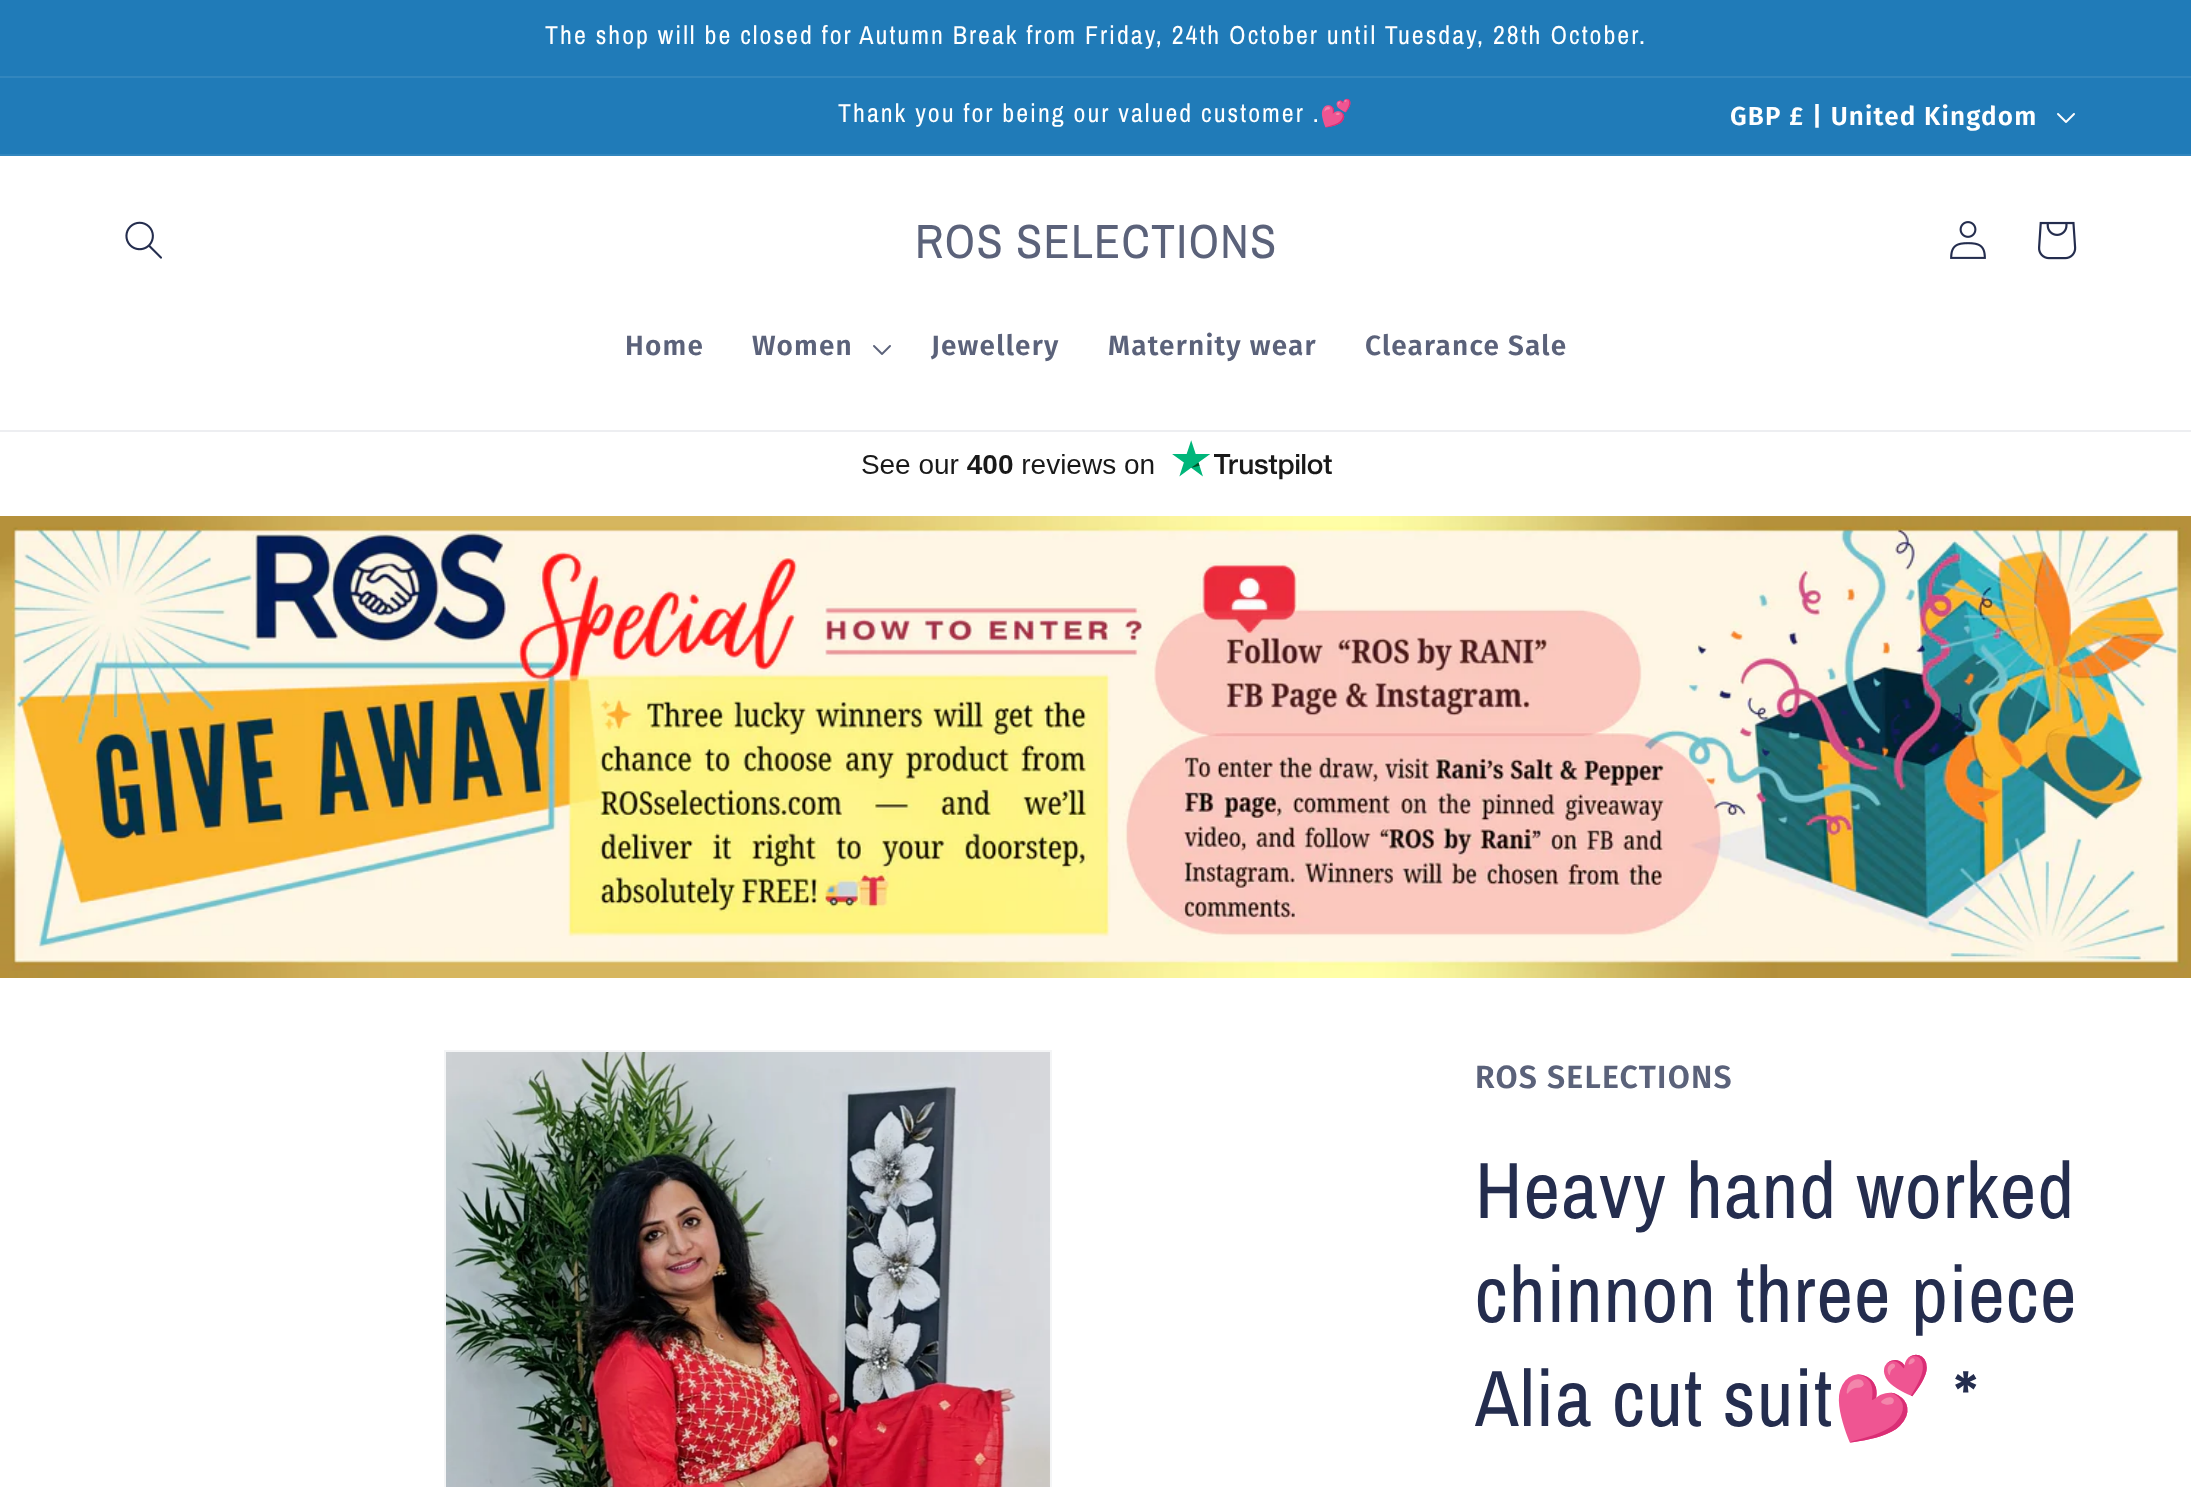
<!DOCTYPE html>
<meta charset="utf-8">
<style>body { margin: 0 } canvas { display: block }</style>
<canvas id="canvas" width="2191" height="1487"></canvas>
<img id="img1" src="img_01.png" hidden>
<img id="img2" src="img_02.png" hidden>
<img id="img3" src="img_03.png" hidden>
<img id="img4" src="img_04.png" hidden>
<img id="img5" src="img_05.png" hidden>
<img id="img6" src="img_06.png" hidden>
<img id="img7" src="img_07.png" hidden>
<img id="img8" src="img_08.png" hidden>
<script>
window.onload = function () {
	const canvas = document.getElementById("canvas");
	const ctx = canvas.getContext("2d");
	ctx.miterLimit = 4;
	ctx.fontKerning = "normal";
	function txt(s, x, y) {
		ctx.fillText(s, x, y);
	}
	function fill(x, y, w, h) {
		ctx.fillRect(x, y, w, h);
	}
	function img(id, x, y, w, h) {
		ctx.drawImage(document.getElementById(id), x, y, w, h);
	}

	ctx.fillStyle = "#FFFFFF";
	fill(0, 0, 2191, 1487);
	ctx.fillStyle = "#207BB8";
	fill(0, 0, 2191, 76);
	ctx.fillStyle = "#3286BE";
	fill(0, 76, 2191, 2);
	ctx.fillStyle = "#207BB8";
	fill(0, 78, 2191, 76);
	ctx.fillStyle = "#3286BE";
	fill(0, 154, 2191, 2);
	img("img1", 2057, 113, 18, 10);
	ctx.fillStyle = "#EDEEF1";
	fill(0, 430, 2191, 2);
	img("img2", 125, 221, 37, 38);
	img("img3", 1950, 221, 36, 38);
	img("img4", 2038, 221, 39, 39);
	img("img5", 873, 345, 18, 10);
	img("img6", 862, 440, 470, 40);
	img("img7", 0, 516, 2191, 462);
	ctx.strokeStyle = "#F4F5F6";
	ctx.lineWidth = 2;
	ctx.strokeRect(445, 1051, 606, 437);
	img("img8", 446, 1052, 604, 435);
	ctx.letterSpacing = "2px";
	ctx.font = "26px Archivo Narrow";
	ctx.fillStyle = "#FFFFFF";
	txt("The shop will be closed for Autumn Break from Friday, 24th October until Tuesday, 28th October.", 545, 44);
	txt("Thank you for being our valued customer .", 838, 122);
	ctx.font = "26px Noto Color Emoji";
	txt("💕", 1320, 122);
	ctx.letterSpacing = "1.2px";
	ctx.font = "600 26px Fira Sans";
	txt("GBP £ | United Kingdom", 1730, 125);
	ctx.font = "48px Archivo Narrow";
	ctx.fillStyle = "#5B627A";
	txt("ROS SELECTIONS", 915, 258);
	ctx.font = "600 28px Fira Sans";
	txt("Home", 625, 355);
	txt("Women", 752, 355);
	txt("Jewellery", 931, 355);
	txt("Maternity wear", 1108, 355);
	txt("Clearance Sale", 1365, 355);
	ctx.font = "600 32px Fira Sans";
	txt("ROS SELECTIONS", 1475, 1088);
	ctx.font = "80px Archivo Narrow";
	ctx.fillStyle = "#242D4E";
	txt("Heavy hand worked", 1475, 1218);
	txt("chinnon three piece", 1475, 1322);
	txt("Alia cut suit", 1475, 1426);
	ctx.font = "80px Noto Color Emoji";
	txt("💕", 1833, 1426);
	ctx.font = "80px Archivo Narrow";
	txt("*", 1953, 1426);
};
</script>
